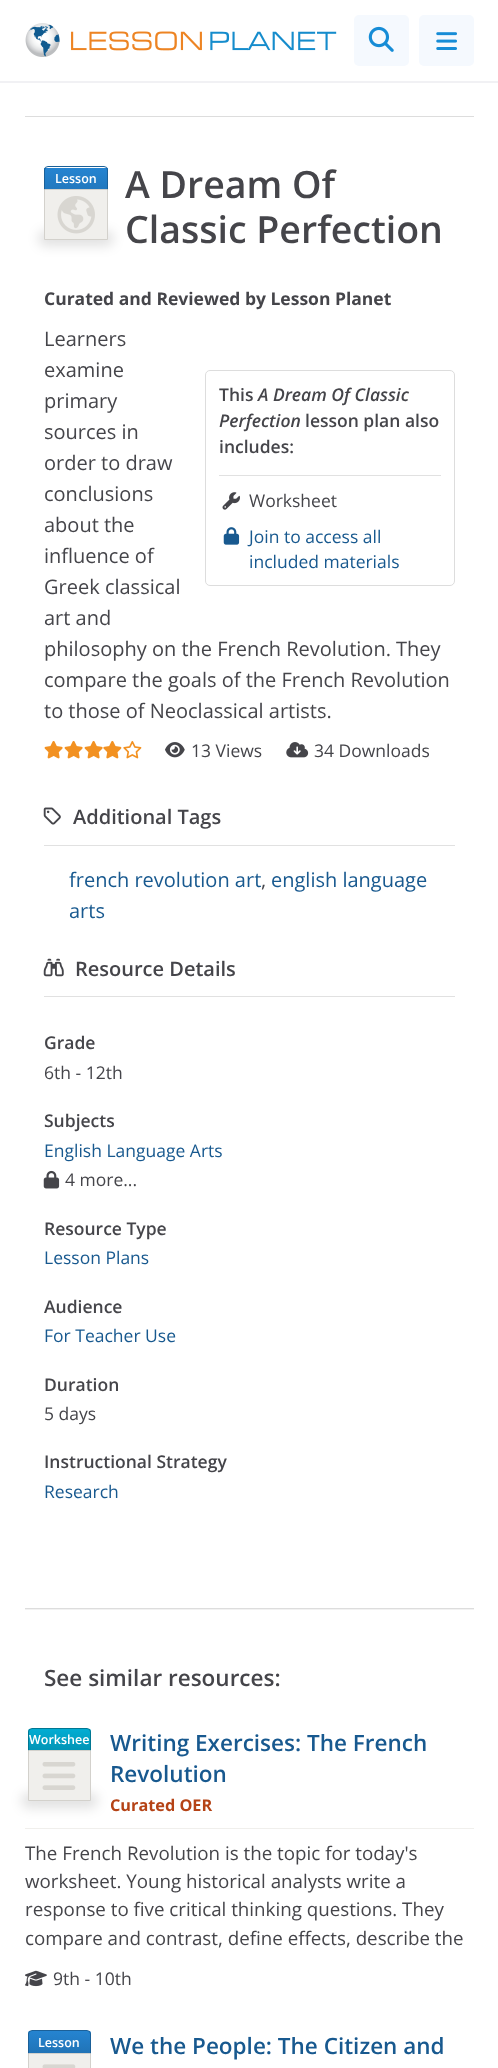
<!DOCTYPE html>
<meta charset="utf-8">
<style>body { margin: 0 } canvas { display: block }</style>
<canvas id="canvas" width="498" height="2068"></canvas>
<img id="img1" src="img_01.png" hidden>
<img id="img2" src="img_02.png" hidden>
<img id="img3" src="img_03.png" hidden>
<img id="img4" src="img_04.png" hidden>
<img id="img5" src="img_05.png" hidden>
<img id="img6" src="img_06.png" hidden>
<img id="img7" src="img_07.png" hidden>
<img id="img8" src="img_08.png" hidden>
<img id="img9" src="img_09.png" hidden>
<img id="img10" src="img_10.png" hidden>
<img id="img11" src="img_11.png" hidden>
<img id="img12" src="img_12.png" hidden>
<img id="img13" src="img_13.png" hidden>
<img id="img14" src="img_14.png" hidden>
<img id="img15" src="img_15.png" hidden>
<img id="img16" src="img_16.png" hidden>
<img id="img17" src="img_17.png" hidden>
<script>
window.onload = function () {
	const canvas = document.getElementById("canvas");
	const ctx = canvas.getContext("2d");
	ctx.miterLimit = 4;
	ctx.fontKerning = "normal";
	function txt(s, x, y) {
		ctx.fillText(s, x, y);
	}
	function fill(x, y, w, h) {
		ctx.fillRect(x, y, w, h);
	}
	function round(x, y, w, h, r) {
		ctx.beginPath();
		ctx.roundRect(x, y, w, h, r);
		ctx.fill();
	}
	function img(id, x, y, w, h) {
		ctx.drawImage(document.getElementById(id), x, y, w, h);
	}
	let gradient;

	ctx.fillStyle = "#FFFFFF";
	fill(0, 0, 498, 2068);
	ctx.fillStyle = "#F1F1F4";
	ctx.beginPath();
	ctx.moveTo(0, 81);
	ctx.lineTo(0, 83);
	ctx.lineTo(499, 83);
	ctx.lineTo(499, 1);
	ctx.lineTo(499, 81);
	ctx.closePath();
	ctx.fill();
	img("img1", 25, 23, 312, 34);
	ctx.fillStyle = "#F5F9FE";
	round(354, 15, 55, 51, 5);
	img("img2", 368, 26, 26, 26);
	round(419, 15, 55, 51, 5);
	img("img3", 436, 32, 21, 18);
	ctx.fillStyle = "rgba(0, 0, 0, 0.05)";
	ctx.filter = "blur(0.5px)";
	ctx.beginPath();
	ctx.rect(25, 118, 449, 1492);
	ctx.fill();
	ctx.filter = "none";
	ctx.fillStyle = "#FFFFFF";
	fill(25, 118, 449, 1490);
	ctx.fillStyle = "#DDDDDD";
	fill(25, 116, 449, 1);
	fill(25, 1608, 449, 1);
	gradient = ctx.createLinearGradient(76, 168, 76, 208);
	gradient.addColorStop(0, "#2584D1");
	gradient.addColorStop(1, "#1F6EAE");
	ctx.fillStyle = gradient;
	fill(44, 168, 64, 21);
	ctx.beginPath();
	ctx.roundRect(44.5, 166.5, 63, 42, [3.5, 3.5, 0, 0]);
	ctx.strokeStyle = "#1B6098";
	ctx.stroke();
	ctx.fillStyle = "rgba(0, 0, 0, 0.12)";
	ctx.filter = "blur(6px)";
	ctx.beginPath();
	ctx.roundRect(38, 231, 76, 15, 7.5);
	ctx.fill();
	ctx.filter = "none";
	ctx.fillStyle = "#F0EFEC";
	ctx.beginPath();
	ctx.rect(44.5, 189.5, 63, 50);
	ctx.fill();
	ctx.strokeStyle = "#D3D1CC";
	ctx.stroke();
	img("img4", 57, 196, 38, 38);
	ctx.beginPath();
	ctx.roundRect(205.5, 370.5, 249, 215, 4.5);
	ctx.strokeStyle = "#DDDDDD";
	ctx.stroke();
	ctx.fillStyle = "#E1E1E1";
	fill(219, 475, 222, 1);
	img("img5", 222, 492, 18, 18);
	img("img6", 223, 527, 17, 18);
	img("img7", 44, 741, 19, 18);
	img("img7", 64, 741, 19, 18);
	img("img7", 84, 741, 19, 18);
	img("img8", 103, 741, 19, 18);
	img("img9", 123, 741, 19, 18);
	img("img10", 165, 742, 20, 16);
	img("img11", 286, 742, 23, 16);
	fill(44, 845, 411, 1);
	img("img12", 43, 807, 18, 18);
	fill(44, 996, 411, 1);
	img("img13", 43, 958, 21, 19);
	img("img14", 43, 1170, 17, 19);
	ctx.save();
	ctx.beginPath();
	ctx.roundRect(28, 1728, 63, 31, [4, 4, 0, 0]);
	ctx.clip();
	gradient = ctx.createLinearGradient(59, 1729, 59, 1758);
	gradient.addColorStop(0, "#02ADD3");
	gradient.addColorStop(1, "#028CAB");
	ctx.fillStyle = gradient;
	fill(28, 1729, 63, 21);
	ctx.restore();
	ctx.beginPath();
	ctx.roundRect(28.5, 1728.5, 62, 30, [3.5, 3.5, 0, 0]);
	ctx.strokeStyle = "#027792";
	ctx.stroke();
	ctx.fillStyle = "rgba(0, 0, 0, 0.12)";
	ctx.filter = "blur(6px)";
	ctx.beginPath();
	ctx.roundRect(21, 1793, 77, 15, 7.5);
	ctx.fill();
	ctx.filter = "none";
	ctx.fillStyle = "#F0EFEC";
	ctx.beginPath();
	ctx.rect(28.5, 1750.5, 62, 50);
	ctx.fill();
	ctx.strokeStyle = "#D3D1CC";
	ctx.stroke();
	img("img15", 42, 1762, 34, 28);
	fill(25, 1828, 449, 1);
	img("img16", 25, 1970, 22, 17);
	ctx.save();
	ctx.beginPath();
	ctx.roundRect(28, 2030, 63, 31, [4, 4, 0, 0]);
	ctx.clip();
	gradient = ctx.createLinearGradient(59, 2031, 59, 2060);
	gradient.addColorStop(0, "#2584D1");
	gradient.addColorStop(1, "#1F6EAE");
	ctx.fillStyle = gradient;
	fill(28, 2031, 63, 22);
	ctx.restore();
	ctx.beginPath();
	ctx.roundRect(28.5, 2030.5, 62, 30, [3.5, 3.5, 0, 0]);
	ctx.strokeStyle = "#1B6098";
	ctx.stroke();
	ctx.beginPath();
	ctx.rect(28.5, 2053.5, 62, 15);
	ctx.fill();
	ctx.strokeStyle = "#D3D1CC";
	ctx.stroke();
	img("img17", 42, 2064, 34, 4);
	ctx.font = "600 12.5px Open Sans";
	ctx.fillStyle = "#FFFFFF";
	txt("Lesson", 55, 183);
	ctx.font = "600 37.5px Open Sans";
	ctx.fillStyle = "#45454A";
	txt("A Dream Of", 125, 198);
	txt("Classic Perfection", 125, 243);
	ctx.font = "bold 17.5px Open Sans";
	txt("Curated and Reviewed by Lesson Planet", 44, 305);
	ctx.font = "20px Open Sans";
	txt("Learners", 44, 346);
	txt("examine", 44, 377);
	txt("primary", 44, 408);
	txt("sources in", 44, 439);
	txt("order to draw", 44, 470);
	txt("conclusions", 44, 501);
	txt("about the", 44, 532);
	txt("influence of", 44, 563);
	txt("Greek classical", 44, 594);
	txt("art and", 44, 625);
	txt("philosophy on the French Revolution. They", 44, 656);
	txt("compare the goals of the French Revolution", 44, 687);
	txt("to those of Neoclassical artists.", 44, 718);
	ctx.font = "600 17.5px Open Sans";
	txt("This", 219, 401);
	ctx.font = "italic 600 17.5px Open Sans";
	txt("A Dream Of Classic", 258, 401);
	txt("Perfection", 219, 427);
	ctx.font = "600 17.5px Open Sans";
	txt("lesson plan also", 305, 427);
	txt("includes:", 219, 453);
	ctx.font = "17.5px Open Sans";
	txt("Worksheet", 249, 507);
	ctx.fillStyle = "#18598F";
	txt("Join to access all", 249, 543);
	txt("included materials", 249, 568);
	ctx.fillStyle = "#45454A";
	txt("13 Views", 191, 757);
	txt("34 Downloads", 314, 757);
	ctx.font = "600 20px Open Sans";
	txt("Additional Tags", 73, 824);
	ctx.font = "20px Open Sans";
	ctx.fillStyle = "#18598F";
	txt("french revolution art", 69, 887);
	ctx.fillStyle = "#45454A";
	txt(",", 261, 887);
	ctx.fillStyle = "#18598F";
	txt("english language", 271, 887);
	txt("arts", 69, 918);
	ctx.font = "600 20px Open Sans";
	ctx.fillStyle = "#45454A";
	txt("Resource Details", 75, 976);
	ctx.font = "600 17.5px Open Sans";
	txt("Grade", 44, 1049);
	ctx.font = "17.5px Open Sans";
	txt("6th - 12th", 44, 1079);
	ctx.font = "600 17.5px Open Sans";
	txt("Subjects", 44, 1127);
	ctx.font = "17.5px Open Sans";
	ctx.fillStyle = "#18598F";
	txt("English Language Arts", 44, 1157);
	ctx.fillStyle = "#45454A";
	txt("4 more...", 65, 1186);
	ctx.font = "600 17.5px Open Sans";
	txt("Resource Type", 44, 1235);
	ctx.font = "17.5px Open Sans";
	ctx.fillStyle = "#18598F";
	txt("Lesson Plans", 44, 1264);
	ctx.font = "600 17.5px Open Sans";
	ctx.fillStyle = "#45454A";
	txt("Audience", 44, 1313);
	ctx.font = "17.5px Open Sans";
	ctx.fillStyle = "#18598F";
	txt("For Teacher Use", 44, 1342);
	ctx.font = "600 17.5px Open Sans";
	ctx.fillStyle = "#45454A";
	txt("Duration", 44, 1391);
	ctx.font = "17.5px Open Sans";
	txt("5 days", 44, 1420);
	ctx.font = "600 17.5px Open Sans";
	txt("Instructional Strategy", 44, 1468);
	ctx.font = "17.5px Open Sans";
	ctx.fillStyle = "#18598F";
	txt("Research", 44, 1498);
	ctx.font = "600 22.5px Open Sans";
	ctx.fillStyle = "#45454A";
	txt("See similar resources:", 44, 1686);
	ctx.font = "600 12.5px Open Sans";
	ctx.fillStyle = "#FFFFFF";
	txt("Workshee", 29, 1744);
	ctx.font = "600 22.5px Open Sans";
	ctx.fillStyle = "#18598F";
	txt("Writing Exercises: The French", 110, 1751);
	txt("Revolution", 110, 1782);
	ctx.font = "bold 16.25px Open Sans";
	ctx.fillStyle = "#B54316";
	txt("Curated OER", 110, 1811);
	ctx.font = "18.75px Open Sans";
	ctx.fillStyle = "#45454A";
	txt("The French Revolution is the topic for today's", 25, 1860);
	txt("worksheet. Young historical analysts write a", 25, 1888);
	txt("response to five critical thinking questions. They", 25, 1916);
	txt("compare and contrast, define effects, describe the", 25, 1945);
	ctx.font = "17.5px Open Sans";
	txt("9th - 10th", 53, 1985);
	ctx.font = "600 12.5px Open Sans";
	ctx.fillStyle = "#FFFFFF";
	txt("Lesson", 38, 2047);
	ctx.font = "600 22.5px Open Sans";
	ctx.fillStyle = "#18598F";
	txt("We the People: The Citizen and", 110, 2054);
};
</script>
